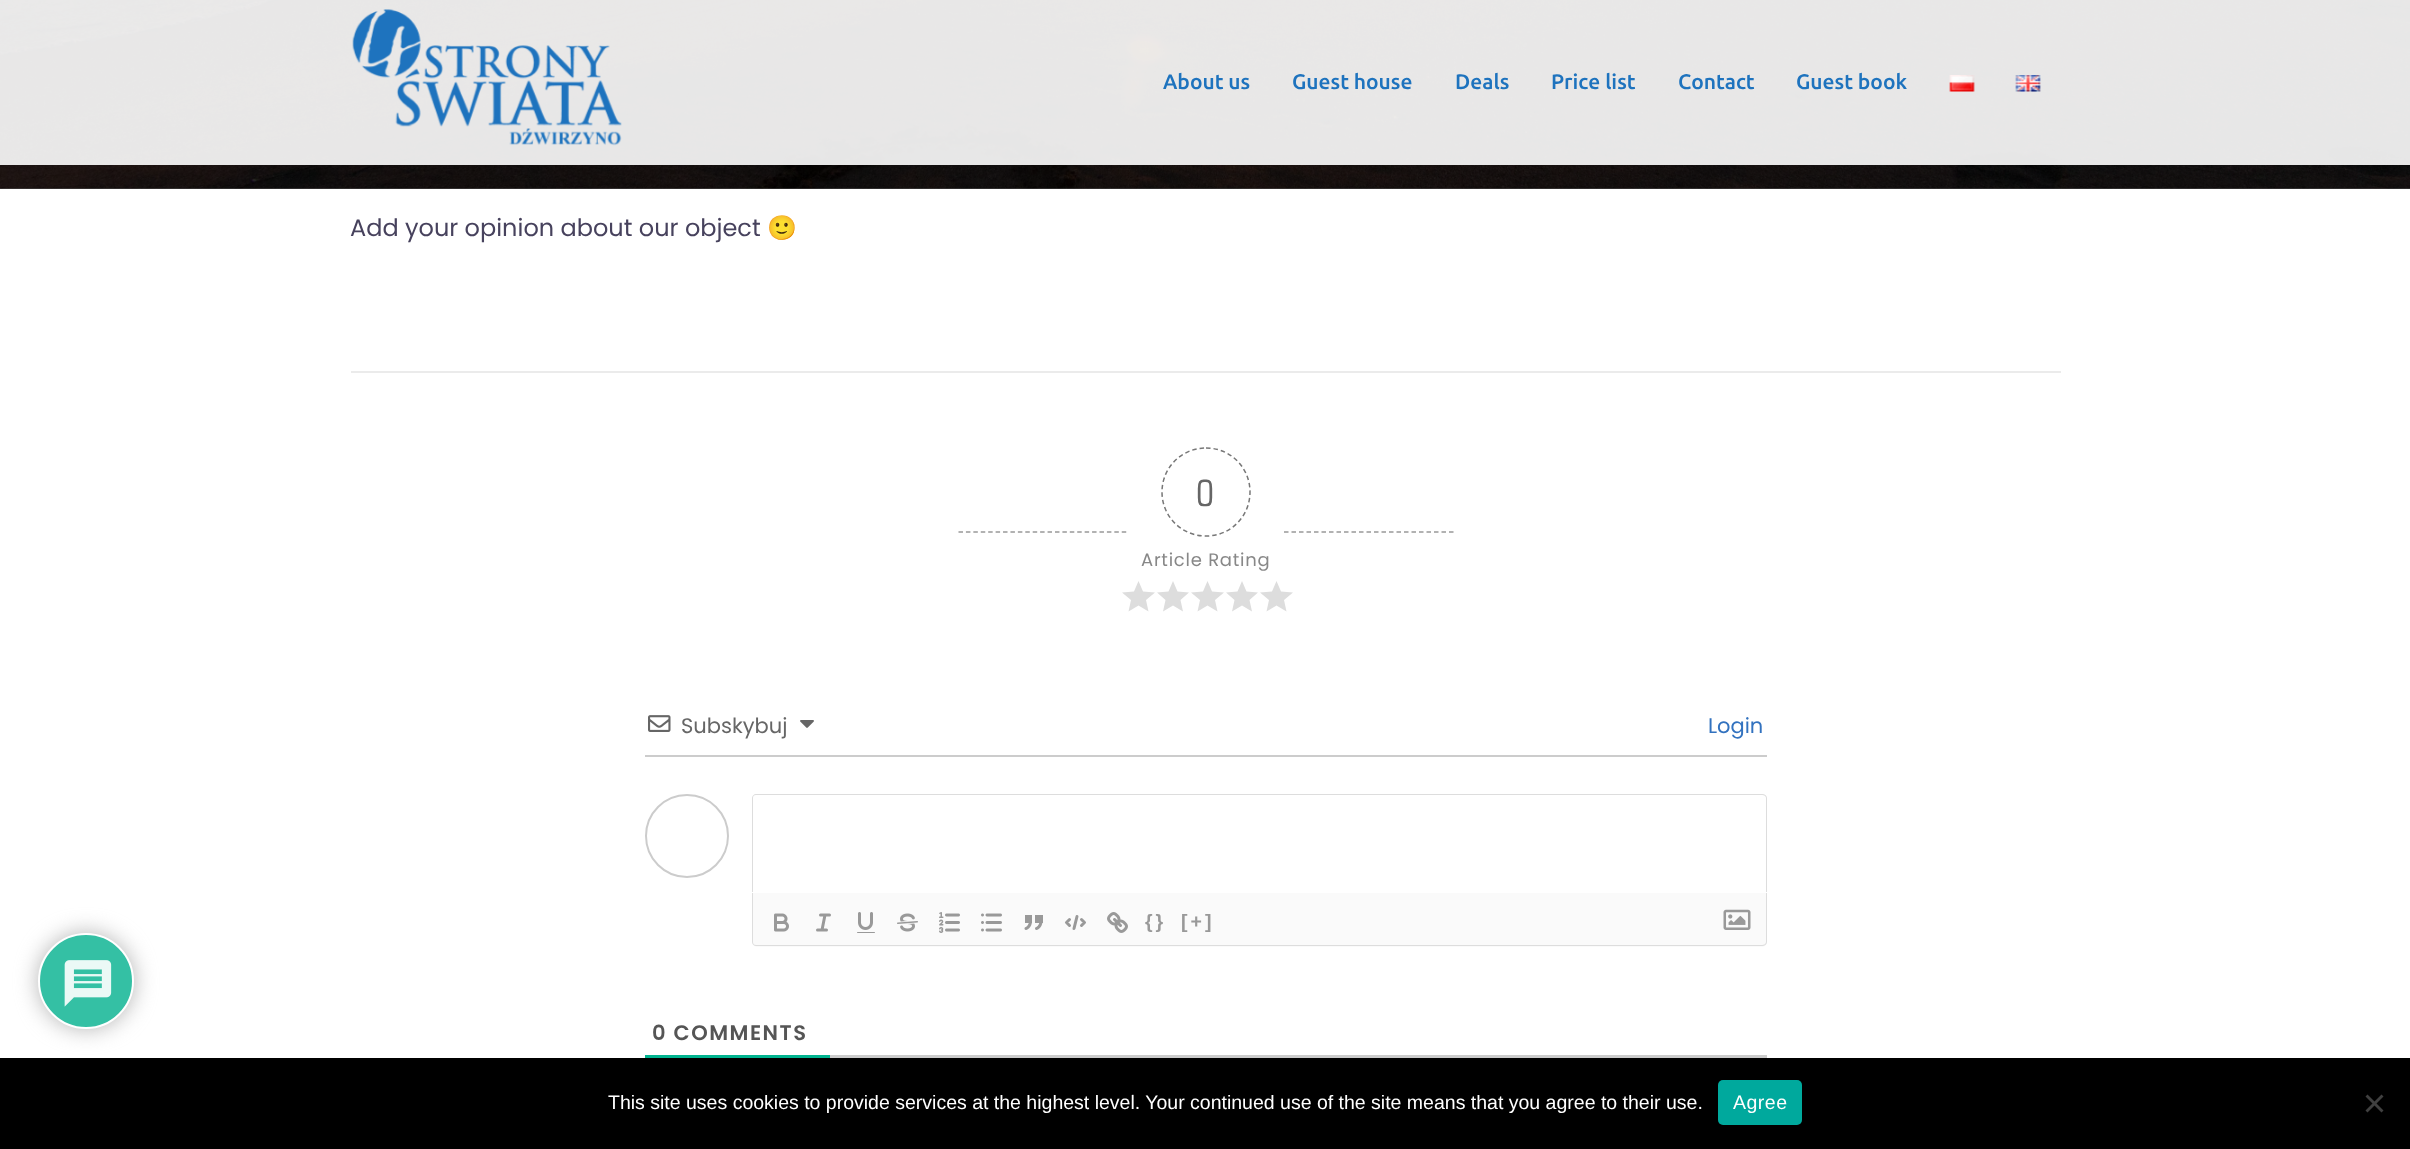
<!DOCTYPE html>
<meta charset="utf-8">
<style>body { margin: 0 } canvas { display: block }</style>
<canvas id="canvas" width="2410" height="1149"></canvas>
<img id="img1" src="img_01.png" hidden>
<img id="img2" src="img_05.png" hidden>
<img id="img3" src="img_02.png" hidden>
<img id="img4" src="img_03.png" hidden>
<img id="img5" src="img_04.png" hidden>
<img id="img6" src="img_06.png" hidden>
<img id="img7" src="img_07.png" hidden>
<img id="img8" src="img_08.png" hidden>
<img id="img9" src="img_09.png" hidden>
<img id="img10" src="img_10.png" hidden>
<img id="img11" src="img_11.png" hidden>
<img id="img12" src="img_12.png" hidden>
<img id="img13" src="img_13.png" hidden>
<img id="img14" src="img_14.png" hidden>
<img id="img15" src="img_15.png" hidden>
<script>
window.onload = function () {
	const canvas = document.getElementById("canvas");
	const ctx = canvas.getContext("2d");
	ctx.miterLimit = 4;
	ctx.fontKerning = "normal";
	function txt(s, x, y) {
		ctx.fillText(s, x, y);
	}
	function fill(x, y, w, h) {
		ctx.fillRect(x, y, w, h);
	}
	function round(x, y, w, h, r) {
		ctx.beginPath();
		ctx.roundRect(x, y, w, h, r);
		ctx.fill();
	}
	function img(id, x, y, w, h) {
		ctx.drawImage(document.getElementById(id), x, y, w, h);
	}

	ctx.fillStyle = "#FFFFFF";
	fill(0, 0, 2410, 1149);
	ctx.fillStyle = "#4D4D4D";
	fill(0, 188, 2410, 1);
	ctx.fillStyle = "#B3B3B3";
	ctx.filter = "blur(11px)";
	ctx.beginPath();
	ctx.roundRect(38, 933, 96, 96, 48);
	ctx.fill();
	ctx.filter = "none";
	ctx.fillStyle = "#34C0A4";
	ctx.beginPath();
	ctx.arc(86, 981, 47, 0, Math.PI * 2);
	ctx.fill();
	ctx.strokeStyle = "#FFFFFF";
	ctx.lineWidth = 2;
	ctx.stroke();
	img("img1", 64, 960, 48, 47);
	img("img2", 0, 0, 2410, 189);
	ctx.fillStyle = "rgba(255, 255, 255, 0.9)";
	fill(0, 0, 2410, 165);
	img("img3", 352, 9, 270, 137);
	img("img4", 1949, 75, 26, 17);
	img("img5", 2015, 75, 26, 17);
	ctx.fillStyle = "#EBEBEB";
	fill(351, 371, 1710, 2);
	ctx.beginPath();
	ctx.moveTo(958.5, 532);
	ctx.lineTo(1126.5, 532);
	ctx.strokeStyle = "#999999";
	ctx.lineWidth = 1.5;
	ctx.setLineDash([4.5, 2.92]);
	ctx.stroke();
	ctx.beginPath();
	ctx.moveTo(1206, 448);
	ctx.bezierCurveTo(1230.5, 448, 1250, 467.5, 1250, 492);
	ctx.bezierCurveTo(1250, 516.5, 1230.5, 536, 1206, 536);
	ctx.bezierCurveTo(1181.5, 536, 1162, 516.5, 1162, 492);
	ctx.bezierCurveTo(1162, 467.5, 1181.5, 448, 1206, 448);
	ctx.closePath();
	ctx.strokeStyle = "#777777";
	ctx.setLineDash([4.5, 3]);
	ctx.stroke();
	ctx.fillStyle = "#DDDDDD";
	ctx.beginPath();
	ctx.moveTo(1138.5, 605.5);
	ctx.lineTo(1148.5, 611.5);
	ctx.lineTo(1146, 600);
	ctx.lineTo(1155, 592.5);
	ctx.lineTo(1143, 591.5);
	ctx.lineTo(1138.5, 581);
	ctx.lineTo(1134, 591.5);
	ctx.lineTo(1122, 592.5);
	ctx.lineTo(1131, 600);
	ctx.lineTo(1128.5, 611.5);
	ctx.closePath();
	ctx.fill();
	ctx.beginPath();
	ctx.moveTo(1173, 605.5);
	ctx.lineTo(1183, 611.5);
	ctx.lineTo(1180.5, 600);
	ctx.lineTo(1189, 592.5);
	ctx.lineTo(1177.5, 591.5);
	ctx.lineTo(1173, 581);
	ctx.lineTo(1168.5, 591.5);
	ctx.lineTo(1157, 592.5);
	ctx.lineTo(1165.5, 600);
	ctx.lineTo(1163, 611.5);
	ctx.closePath();
	ctx.fill();
	ctx.beginPath();
	ctx.moveTo(1207.5, 605.5);
	ctx.lineTo(1217.5, 611.5);
	ctx.lineTo(1215, 600);
	ctx.lineTo(1224, 592.5);
	ctx.lineTo(1212, 591.5);
	ctx.lineTo(1207.5, 581);
	ctx.lineTo(1203, 591.5);
	ctx.lineTo(1191, 592.5);
	ctx.lineTo(1200, 600);
	ctx.lineTo(1197.5, 611.5);
	ctx.closePath();
	ctx.fill();
	ctx.beginPath();
	ctx.moveTo(1242, 605.5);
	ctx.lineTo(1252, 611.5);
	ctx.lineTo(1249.5, 600);
	ctx.lineTo(1258, 592.5);
	ctx.lineTo(1246.5, 591.5);
	ctx.lineTo(1242, 581);
	ctx.lineTo(1237.5, 591.5);
	ctx.lineTo(1226, 592.5);
	ctx.lineTo(1234.5, 600);
	ctx.lineTo(1232, 611.5);
	ctx.closePath();
	ctx.fill();
	ctx.beginPath();
	ctx.moveTo(1276.5, 605.5);
	ctx.lineTo(1286.5, 611.5);
	ctx.lineTo(1284, 600);
	ctx.lineTo(1293, 592.5);
	ctx.lineTo(1281, 591.5);
	ctx.lineTo(1276.5, 581);
	ctx.lineTo(1272, 591.5);
	ctx.lineTo(1260, 592.5);
	ctx.lineTo(1269, 600);
	ctx.lineTo(1266.5, 611.5);
	ctx.closePath();
	ctx.fill();
	ctx.beginPath();
	ctx.moveTo(1284, 532);
	ctx.lineTo(1453.5, 532);
	ctx.strokeStyle = "#999999";
	ctx.stroke();
	ctx.fillStyle = "#CCCCCC";
	fill(645, 755, 1122, 2);
	img("img6", 648, 715, 23, 17);
	img("img7", 800, 720, 14, 8);
	ctx.beginPath();
	ctx.arc(687, 836, 41, 0, Math.PI * 2);
	ctx.strokeStyle = "#CCCCCC";
	ctx.lineWidth = 2;
	ctx.setLineDash([]);
	ctx.stroke();
	ctx.fillStyle = "#FAFAFA";
	ctx.beginPath();
	ctx.roundRect(752, 893, 1015, 54, [0, 0, 5, 5]);
	ctx.fill();
	ctx.fillStyle = "#DDDDDD";
	ctx.beginPath();
	ctx.moveTo(752, 892);
	ctx.lineTo(1767, 892);
	ctx.lineTo(1767, 942);
	ctx.bezierCurveTo(1767, 944, 1765, 946, 1762, 946);
	ctx.lineTo(756, 946);
	ctx.bezierCurveTo(754, 946, 752, 944, 752, 942);
	ctx.closePath();
	ctx.moveTo(753, 892);
	ctx.lineTo(1766, 892);
	ctx.lineTo(1766, 942);
	ctx.bezierCurveTo(1766, 944, 1764, 945, 1762, 945);
	ctx.lineTo(756, 945);
	ctx.bezierCurveTo(754, 945, 753, 944, 753, 942);
	ctx.closePath();
	ctx.fill("evenodd");
	ctx.fillStyle = "#FFFFFF";
	ctx.beginPath();
	ctx.roundRect(752, 794, 1015, 99, [5, 5, 0, 0]);
	ctx.fill();
	ctx.fillStyle = "#DDDDDD";
	ctx.beginPath();
	ctx.moveTo(756, 794);
	ctx.lineTo(1762, 794);
	ctx.bezierCurveTo(1765, 794, 1767, 796, 1767, 798);
	ctx.lineTo(1767, 892);
	ctx.lineTo(752, 892);
	ctx.lineTo(752, 798);
	ctx.bezierCurveTo(752, 796, 754, 794, 756, 794);
	ctx.closePath();
	ctx.moveTo(756, 795);
	ctx.lineTo(1762, 795);
	ctx.bezierCurveTo(1764, 795, 1766, 796, 1766, 798);
	ctx.lineTo(1766, 892);
	ctx.lineTo(753, 892);
	ctx.lineTo(753, 798);
	ctx.bezierCurveTo(753, 796, 754, 795, 756, 795);
	ctx.closePath();
	ctx.fill("evenodd");
	img("img8", 774, 913, 15, 19);
	ctx.beginPath();
	ctx.moveTo(820.5, 915);
	ctx.lineTo(829.5, 915);
	ctx.moveTo(817.5, 930);
	ctx.lineTo(826.5, 930);
	ctx.moveTo(822, 930);
	ctx.lineTo(825, 915);
	ctx.strokeStyle = "#999999";
	ctx.lineWidth = 3;
	ctx.lineCap = "round";
	ctx.lineJoin = "round";
	ctx.stroke();
	img("img9", 857, 912, 18, 21);
	img("img10", 897, 913, 21, 19);
	img("img11", 939, 912, 21, 21);
	img("img12", 981, 913, 21, 19);
	img("img13", 1024, 915, 19, 15);
	ctx.beginPath();
	ctx.moveTo(1069.5, 919.5);
	ctx.lineTo(1066.5, 922.5);
	ctx.lineTo(1069.5, 925.5);
	ctx.moveTo(1081.5, 919.5);
	ctx.lineTo(1084.5, 922.5);
	ctx.lineTo(1081.5, 925.5);
	ctx.moveTo(1077, 916.5);
	ctx.lineTo(1074, 928.5);
	ctx.stroke();
	img("img14", 1107, 912, 21, 21);
	img("img15", 1723, 909, 28, 21);
	ctx.fillStyle = "#CCCCCC";
	fill(830, 1055, 937, 3);
	ctx.fillStyle = "#00B38F";
	fill(645, 1055, 185, 3);
	ctx.fillStyle = "#000000";
	fill(0, 1058, 2410, 91);
	ctx.fillStyle = "#00A99D";
	round(1718, 1080, 84, 45, 5);
	ctx.fillStyle = "#404040";
	ctx.beginPath();
	ctx.moveTo(2381.5, 1094.5);
	ctx.lineTo(2383.5, 1096.5);
	ctx.lineTo(2367.5, 1112.5);
	ctx.lineTo(2365.5, 1110.5);
	ctx.closePath();
	ctx.fill();
	ctx.beginPath();
	ctx.moveTo(2365.5, 1096.5);
	ctx.lineTo(2367.5, 1094.5);
	ctx.lineTo(2383.5, 1110.5);
	ctx.lineTo(2381.5, 1112.5);
	ctx.closePath();
	ctx.fill();
	ctx.font = "500 21px Ubuntu";
	ctx.fillStyle = "#1E73BE";
	txt("About us", 1163, 89);
	txt("Guest house", 1292, 89);
	txt("Deals", 1455, 89);
	txt("Price list", 1551, 89);
	txt("Contact", 1678, 89);
	txt("Guest book", 1796, 89);
	ctx.font = "24px Poppins";
	ctx.fillStyle = "#47425D";
	txt("Add your opinion about our object", 350, 236);
	ctx.font = "24px Noto Color Emoji";
	txt("🙂", 767, 236);
	ctx.font = "36px 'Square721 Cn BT'";
	ctx.fillStyle = "#666666";
	txt("0", 1196, 506);
	ctx.letterSpacing = "0.75px";
	ctx.font = "18px Poppins";
	ctx.fillStyle = "#888888";
	txt("Article Rating", 1141, 566);
	ctx.letterSpacing = "0px";
	ctx.font = "21px Poppins";
	ctx.fillStyle = "#666666";
	txt("Subskybuj", 681, 733);
	ctx.fillStyle = "#3272BF";
	txt("Login", 1708, 733);
	ctx.letterSpacing = "3px";
	ctx.font = "bold 19.5px Liberation Sans";
	ctx.fillStyle = "#999999";
	txt("{}", 1145, 928);
	txt("[+]", 1181, 928);
	ctx.letterSpacing = "1.5px";
	ctx.font = "600 21px Poppins";
	ctx.fillStyle = "#555555";
	txt("0 COMMENTS", 652, 1040);
	ctx.letterSpacing = "0px";
	ctx.font = "19.5px Liberation Sans";
	ctx.fillStyle = "#FFFFFF";
	txt("This site uses cookies to provide services at the highest level. Your continued use of the site means that you agree to their use.", 608, 1109);
	ctx.letterSpacing = "0.5px";
	txt("Agree", 1733, 1109);
};
</script>
